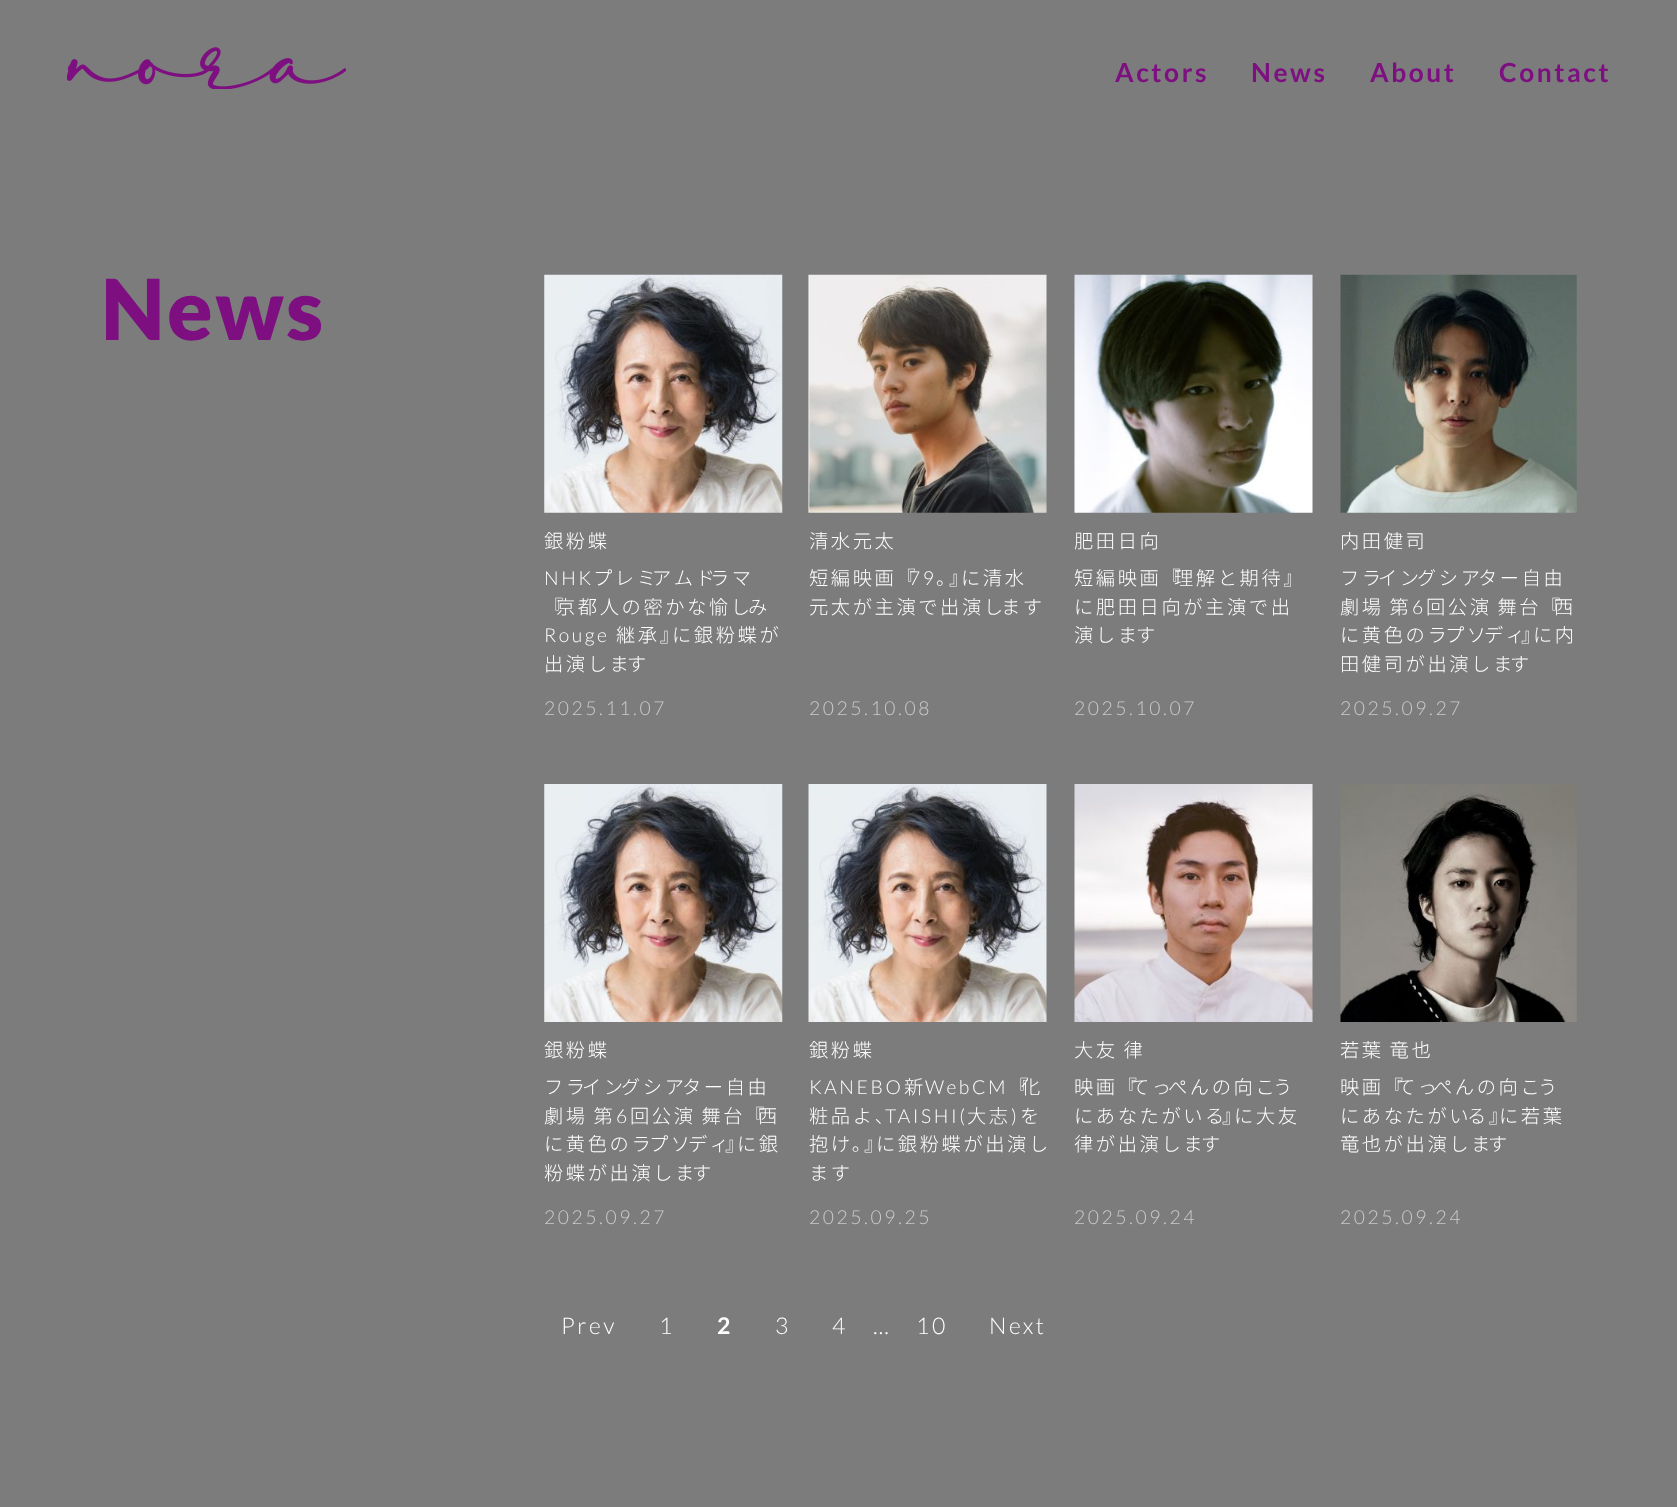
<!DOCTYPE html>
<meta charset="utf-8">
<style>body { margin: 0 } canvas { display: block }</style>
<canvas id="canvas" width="1677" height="1507"></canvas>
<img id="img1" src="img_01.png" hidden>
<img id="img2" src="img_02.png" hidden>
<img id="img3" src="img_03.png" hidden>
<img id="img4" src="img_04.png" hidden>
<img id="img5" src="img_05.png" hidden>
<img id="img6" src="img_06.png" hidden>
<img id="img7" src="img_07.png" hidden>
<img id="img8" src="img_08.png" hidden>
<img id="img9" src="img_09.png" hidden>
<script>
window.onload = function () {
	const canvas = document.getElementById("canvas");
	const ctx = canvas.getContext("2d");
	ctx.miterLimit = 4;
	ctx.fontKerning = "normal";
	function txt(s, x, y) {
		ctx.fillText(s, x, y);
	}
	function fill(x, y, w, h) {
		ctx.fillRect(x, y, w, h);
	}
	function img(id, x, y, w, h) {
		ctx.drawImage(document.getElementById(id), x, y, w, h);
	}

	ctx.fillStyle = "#7C7C7C";
	fill(0, 0, 1677, 1507);
	img("img1", 67, 47, 279, 42);
	img("img2", 544, 274, 239, 239);
	img("img3", 808, 274, 239, 239);
	img("img4", 1074, 274, 239, 239);
	img("img5", 1340, 274, 237, 239);
	img("img6", 544, 784, 239, 238);
	img("img7", 808, 784, 239, 238);
	img("img8", 1074, 784, 239, 238);
	img("img9", 1340, 784, 237, 238);
	ctx.letterSpacing = "2.6px";
	ctx.font = "bold 26.25px Lato";
	ctx.fillStyle = "#7D0F80";
	txt("Actors", 1115, 82);
	txt("News", 1251, 82);
	txt("About", 1370, 82);
	txt("Contact", 1499, 82);
	ctx.font = "900 84px Lato";
	txt("News", 101, 340);
	ctx.font = "300 19.25px Noto Sans JP";
	ctx.fillStyle = "#FFFFFF";
	txt("銀粉蝶", 544, 548);
	ctx.font = "300 19.25px Lato";
	txt("NHK", 544, 585);
	ctx.font = "300 19.25px Noto Sans JP";
	txt("プレミ", 593, 585);
	txt("アムド", 652, 585);
	txt("ラマ", 710, 585);
	txt("『", 544, 614);
	txt("京都人の密かな愉し", 556, 614);
	txt("み", 748, 614);
	ctx.font = "300 19.25px Lato";
	txt("Rouge", 544, 642);
	ctx.font = "300 19.25px Noto Sans JP";
	txt("継承』", 616, 642);
	txt("に銀粉蝶が", 672, 642);
	txt("出演しま", 544, 671);
	txt("す", 627, 671);
	ctx.font = "300 19.25px Lato";
	ctx.fillStyle = "#CBCBCB";
	txt("2025.11.07", 544, 715);
	ctx.font = "300 19.25px Noto Sans JP";
	ctx.fillStyle = "#FFFFFF";
	txt("清水元太", 809, 548);
	txt("短編映画『", 809, 585);
	ctx.font = "300 19.25px Lato";
	txt("79", 909, 585);
	ctx.font = "300 19.25px Noto Sans JP";
	txt("。", 936, 585);
	txt("』", 949, 585);
	txt("に清水", 961, 585);
	txt("元太が主演で出演し", 809, 614);
	txt("ます", 1001, 614);
	ctx.font = "300 19.25px Lato";
	ctx.fillStyle = "#CBCBCB";
	txt("2025.10.08", 809, 715);
	ctx.font = "300 19.25px Noto Sans JP";
	ctx.fillStyle = "#FFFFFF";
	txt("肥田日向", 1074, 548);
	txt("短編映画『", 1074, 585);
	txt("理解と期待』", 1174, 585);
	txt("に肥田日向が主演で出", 1074, 614);
	txt("演しま", 1074, 642);
	txt("す", 1136, 642);
	ctx.font = "300 19.25px Lato";
	ctx.fillStyle = "#CBCBCB";
	txt("2025.10.07", 1074, 715);
	ctx.font = "300 19.25px Noto Sans JP";
	ctx.fillStyle = "#FFFFFF";
	txt("内田健司", 1340, 548);
	txt("フラ", 1340, 585);
	txt("イン", 1378, 585);
	txt("グシア", 1417, 585);
	txt("ター自由", 1478, 585);
	ctx.wordSpacing = "-1px";
	txt("劇場 第", 1340, 614);
	ctx.wordSpacing = "0px";
	ctx.font = "300 19.25px Lato";
	txt("6", 1412, 614);
	ctx.wordSpacing = "-1px";
	ctx.font = "300 19.25px Noto Sans JP";
	txt("回公演 舞台『", 1426, 614);
	txt("西", 1554, 614);
	ctx.wordSpacing = "0px";
	txt("に黄色のラ", 1340, 642);
	txt("プソ", 1445, 642);
	txt("ディ", 1484, 642);
	txt("』", 1521, 642);
	txt("に内", 1533, 642);
	txt("田健司が出演しま", 1340, 671);
	txt("す", 1510, 671);
	ctx.font = "300 19.25px Lato";
	ctx.fillStyle = "#CBCBCB";
	txt("2025.09.27", 1340, 715);
	ctx.font = "300 19.25px Noto Sans JP";
	ctx.fillStyle = "#FFFFFF";
	txt("銀粉蝶", 544, 1057);
	txt("フラ", 544, 1094);
	txt("イン", 582, 1094);
	txt("グシア", 621, 1094);
	txt("ター自由", 682, 1094);
	ctx.wordSpacing = "-1px";
	txt("劇場 第", 544, 1123);
	ctx.wordSpacing = "0px";
	ctx.font = "300 19.25px Lato";
	txt("6", 616, 1123);
	ctx.wordSpacing = "-1px";
	ctx.font = "300 19.25px Noto Sans JP";
	txt("回公演 舞台『", 630, 1123);
	txt("西", 758, 1123);
	ctx.wordSpacing = "0px";
	txt("に黄色のラ", 544, 1151);
	txt("プソ", 649, 1151);
	txt("ディ", 688, 1151);
	txt("』", 725, 1151);
	txt("に銀", 737, 1151);
	txt("粉蝶が出演しま", 544, 1180);
	txt("す", 692, 1180);
	ctx.font = "300 19.25px Lato";
	ctx.fillStyle = "#CBCBCB";
	txt("2025.09.27", 544, 1224);
	ctx.font = "300 19.25px Noto Sans JP";
	ctx.fillStyle = "#FFFFFF";
	txt("銀粉蝶", 809, 1057);
	ctx.font = "300 19.25px Lato";
	txt("KANEBO", 809, 1094);
	ctx.font = "300 19.25px Noto Sans JP";
	txt("新", 904, 1094);
	ctx.font = "300 19.25px Lato";
	txt("WebCM", 925, 1094);
	ctx.font = "300 19.25px Noto Sans JP";
	txt("『", 1009, 1094);
	txt("化", 1021, 1094);
	txt("粧品よ、", 809, 1123);
	ctx.font = "300 19.25px Lato";
	txt("TAISHI(", 885, 1123);
	ctx.font = "300 19.25px Noto Sans JP";
	txt("大志", 967, 1123);
	ctx.font = "300 19.25px Lato";
	txt(")", 1011, 1123);
	ctx.font = "300 19.25px Noto Sans JP";
	txt("を", 1020, 1123);
	txt("抱け。", 809, 1151);
	txt("』", 864, 1151);
	txt("に銀粉蝶が出演し", 876, 1151);
	txt("ます", 809, 1180);
	ctx.font = "300 19.25px Lato";
	ctx.fillStyle = "#CBCBCB";
	txt("2025.09.25", 809, 1224);
	ctx.wordSpacing = "-1px";
	ctx.font = "300 19.25px Noto Sans JP";
	ctx.fillStyle = "#FFFFFF";
	txt("大友 律", 1074, 1057);
	ctx.wordSpacing = "0px";
	txt("映画『", 1074, 1094);
	txt("てっ", 1130, 1094);
	txt("ぺんの向こ", 1168, 1094);
	txt("う", 1273, 1094);
	txt("にあなたがいる", 1074, 1123);
	txt("』", 1222, 1123);
	txt("に大友", 1234, 1123);
	txt("律が出演しま", 1074, 1151);
	txt("す", 1201, 1151);
	ctx.font = "300 19.25px Lato";
	ctx.fillStyle = "#CBCBCB";
	txt("2025.09.24", 1074, 1224);
	ctx.wordSpacing = "-1px";
	ctx.font = "300 19.25px Noto Sans JP";
	ctx.fillStyle = "#FFFFFF";
	txt("若葉 竜也", 1340, 1057);
	ctx.wordSpacing = "0px";
	txt("映画『", 1340, 1094);
	txt("てっ", 1396, 1094);
	txt("ぺんの向こ", 1433, 1094);
	txt("う", 1538, 1094);
	txt("にあなたがい", 1340, 1123);
	txt("る』", 1467, 1123);
	txt("に若葉", 1499, 1123);
	txt("竜也が出演しま", 1340, 1151);
	txt("す", 1488, 1151);
	ctx.font = "300 19.25px Lato";
	ctx.fillStyle = "#CBCBCB";
	txt("2025.09.24", 1340, 1224);
	ctx.font = "300 23px Lato";
	ctx.fillStyle = "#FFFFFF";
	txt("Prev", 561, 1334);
	txt("1", 659, 1334);
	ctx.font = "bold 23px Lato";
	txt("2", 717, 1334);
	ctx.font = "300 23px Lato";
	txt("3", 775, 1334);
	txt("4", 832, 1334);
	txt("…", 873, 1334);
	txt("10", 916, 1334);
	txt("Next", 989, 1334);
};
</script>
